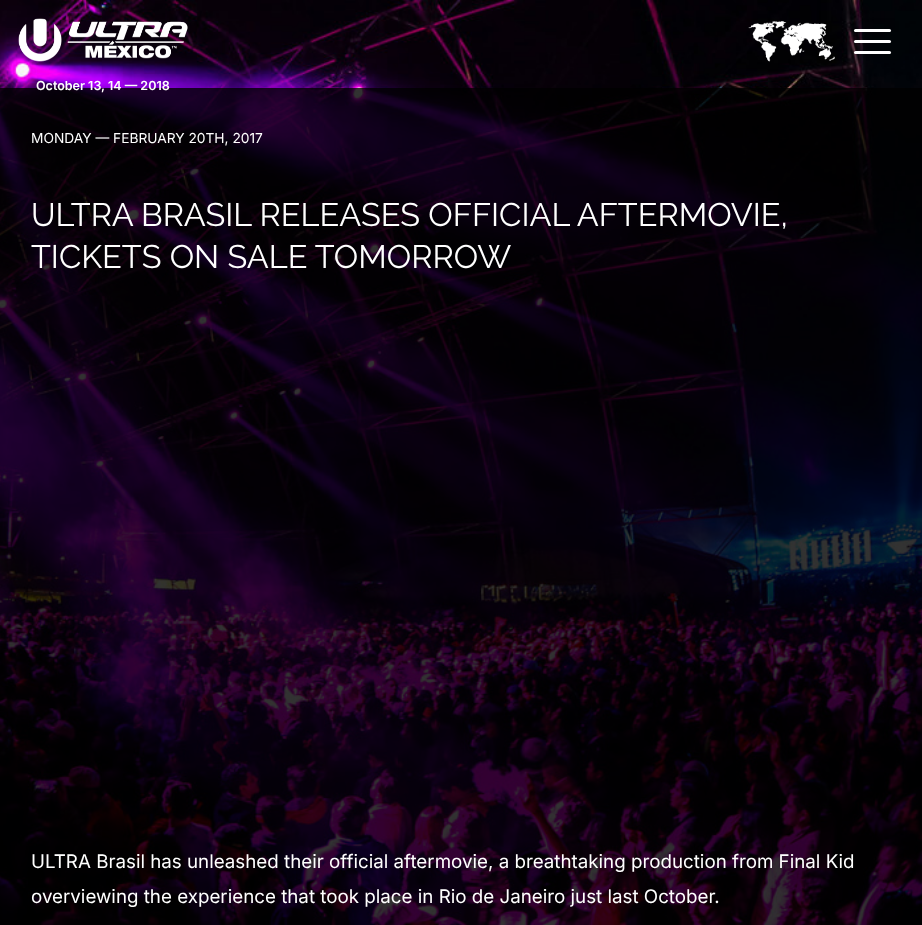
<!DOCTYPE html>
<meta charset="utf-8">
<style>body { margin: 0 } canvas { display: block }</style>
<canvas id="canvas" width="922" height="925"></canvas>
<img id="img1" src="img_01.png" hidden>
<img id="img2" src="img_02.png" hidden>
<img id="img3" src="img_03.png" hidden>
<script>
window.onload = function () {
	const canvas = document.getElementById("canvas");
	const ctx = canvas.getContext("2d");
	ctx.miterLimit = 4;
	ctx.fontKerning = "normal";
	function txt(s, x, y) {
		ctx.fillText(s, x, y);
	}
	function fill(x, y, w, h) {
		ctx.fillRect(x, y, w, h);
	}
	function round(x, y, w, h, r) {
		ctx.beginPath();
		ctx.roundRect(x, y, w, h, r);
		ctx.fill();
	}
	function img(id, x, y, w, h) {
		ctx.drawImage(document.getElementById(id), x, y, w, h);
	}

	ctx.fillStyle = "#FFFFFF";
	fill(0, 0, 922, 925);
	img("img1", 0, 0, 922, 925);
	img("img2", 748, 21, 87, 41);
	round(854, 29, 37, 3, 1.5);
	round(854, 40, 37, 3, 1.5);
	round(854, 51, 37, 3, 1.5);
	img("img3", 18, 18, 170, 44);
	ctx.font = "600 12.5px Inter";
	txt("October 13, 14 — 2018", 36, 90);
	ctx.font = "13.75px Inter";
	txt("MONDAY — FEBRUARY 20TH, 2017", 31, 143);
	ctx.font = "32.5px Raleway";
	txt("ULTRA BRASIL RELEASES OFFICIAL AFTERMOVIE,", 31, 226);
	txt("TICKETS ON SALE TOMORROW", 31, 268);
	ctx.font = "18.75px Inter";
	txt("ULTRA Brasil has unleashed their official aftermovie, a breathtaking production from Final Kid", 31, 868);
	txt("overviewing the experience that took place in Rio de Janeiro just last October.", 31, 903);
};
</script>
